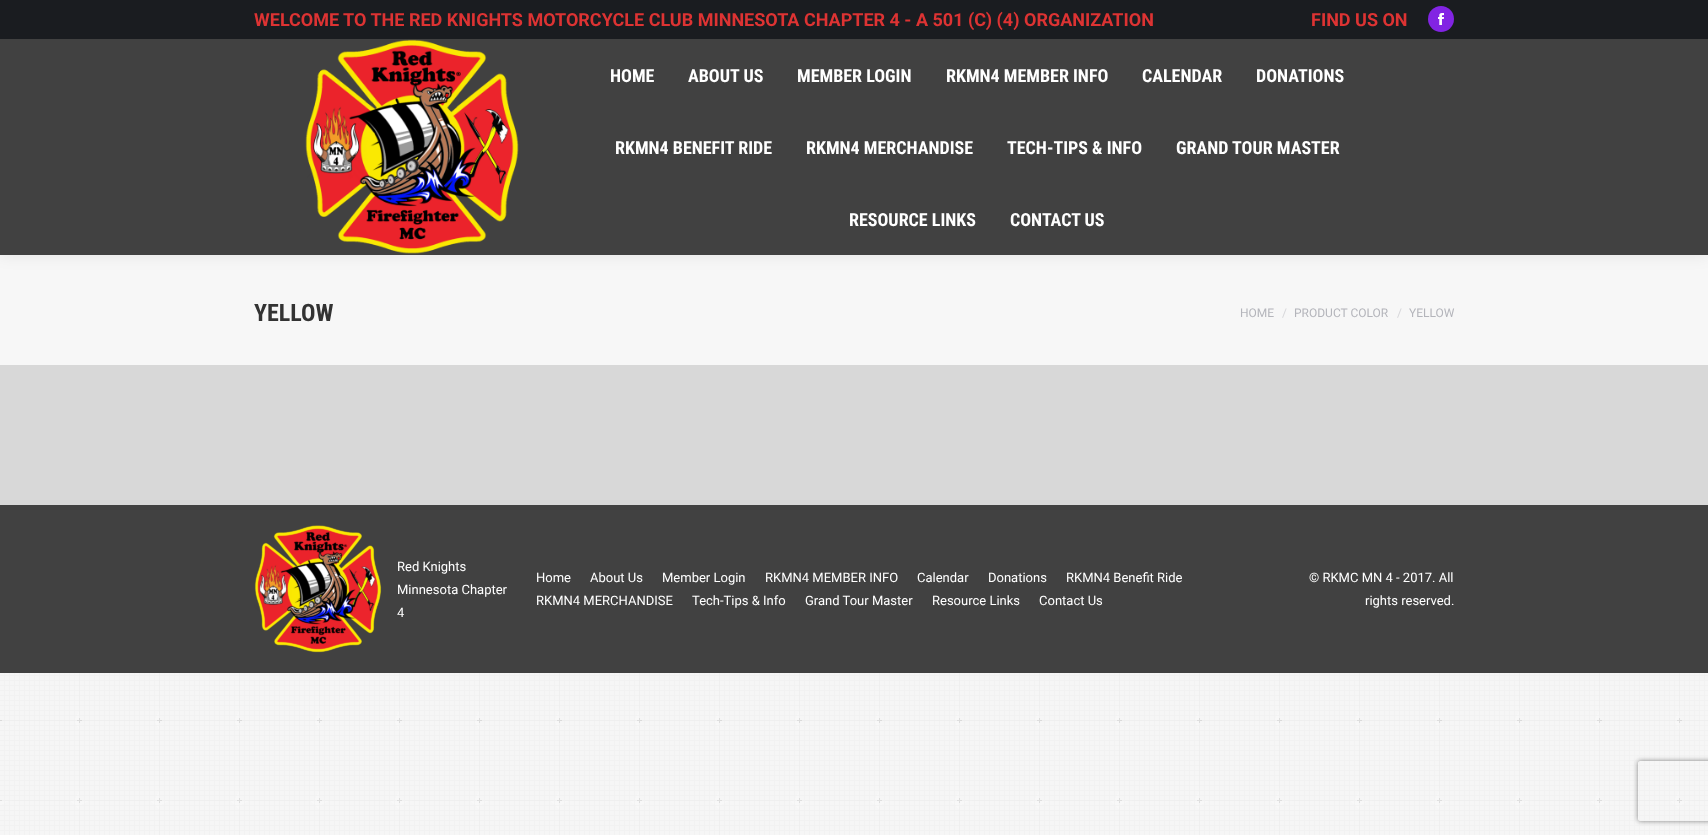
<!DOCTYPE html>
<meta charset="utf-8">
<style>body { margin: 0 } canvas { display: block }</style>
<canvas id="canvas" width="1708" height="835"></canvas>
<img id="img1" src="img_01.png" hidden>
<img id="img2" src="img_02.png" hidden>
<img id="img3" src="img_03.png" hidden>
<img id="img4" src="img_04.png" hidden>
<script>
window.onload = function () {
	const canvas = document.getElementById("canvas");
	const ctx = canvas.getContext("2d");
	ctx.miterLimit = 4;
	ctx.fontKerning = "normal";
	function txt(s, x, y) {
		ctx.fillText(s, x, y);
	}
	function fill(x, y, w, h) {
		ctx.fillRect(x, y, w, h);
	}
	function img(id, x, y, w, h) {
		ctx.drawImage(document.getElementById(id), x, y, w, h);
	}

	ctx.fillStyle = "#F7F7F7";
	fill(0, 0, 1708, 835);
	img("img1", 0, 673, 1708, 162);
	ctx.fillStyle = "#D8D8D8";
	fill(0, 365, 1708, 140);
	ctx.fillStyle = "rgba(0, 0, 0, 0.07)";
	ctx.filter = "blur(7.5px)";
	ctx.beginPath();
	ctx.rect(-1, -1, 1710, 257);
	ctx.fill();
	ctx.filter = "none";
	ctx.fillStyle = "#414141";
	fill(0, 39, 1708, 216);
	ctx.fillStyle = "#1A1C20";
	fill(0, 0, 1708, 39);
	ctx.fillStyle = "#8224E3";
	ctx.beginPath();
	ctx.arc(1441, 19, 13, 0, Math.PI * 2);
	ctx.fill();
	img("img2", 1438, 13, 6, 12);
	img("img3", 305, 39, 214, 215);
	ctx.fillStyle = "#414141";
	fill(0, 505, 1708, 168);
	img("img4", 254, 525, 128, 128);
	ctx.save();
	ctx.beginPath();
	ctx.moveTo(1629, 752);
	ctx.lineTo(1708, 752);
	ctx.lineTo(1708, 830);
	ctx.lineTo(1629, 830);
	ctx.closePath();
	ctx.moveTo(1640, 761);
	ctx.lineTo(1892, 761);
	ctx.bezierCurveTo(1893, 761, 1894, 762, 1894, 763);
	ctx.lineTo(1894, 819);
	ctx.bezierCurveTo(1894, 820, 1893, 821, 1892, 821);
	ctx.lineTo(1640, 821);
	ctx.bezierCurveTo(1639, 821, 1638, 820, 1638, 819);
	ctx.lineTo(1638, 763);
	ctx.bezierCurveTo(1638, 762, 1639, 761, 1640, 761);
	ctx.closePath();
	ctx.clip("evenodd");
	ctx.fillStyle = "#808080";
	ctx.filter = "blur(2.5px)";
	ctx.beginPath();
	ctx.roundRect(1638, 761, 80, 60, 2);
	ctx.fill();
	ctx.filter = "none";
	ctx.restore();
	ctx.font = "bold 18px Roboto";
	ctx.fillStyle = "#DD3333";
	txt("WELCOME TO THE RED KNIGHTS MOTORCYCLE CLUB MINNESOTA CHAPTER 4 - A 501 (C) (4) ORGANIZATION", 254, 26);
	txt("FIND US ON", 1311, 26);
	ctx.font = "bold 18px Roboto Condensed";
	ctx.fillStyle = "#FFFFFF";
	txt("HOME", 610, 82);
	txt("ABOUT US", 688, 82);
	txt("MEMBER LOGIN", 797, 82);
	txt("RKMN4 MEMBER INFO", 946, 82);
	txt("CALENDAR", 1142, 82);
	txt("DONATIONS", 1256, 82);
	txt("RKMN4 BENEFIT RIDE", 615, 154);
	txt("RKMN4 MERCHANDISE", 806, 154);
	txt("TECH-TIPS & INFO", 1007, 154);
	txt("GRAND TOUR MASTER", 1176, 154);
	txt("RESOURCE LINKS", 849, 226);
	txt("CONTACT US", 1010, 226);
	ctx.font = "bold 24px Roboto Condensed";
	ctx.fillStyle = "#333333";
	txt("YELLOW", 254, 321);
	ctx.font = "12px Roboto";
	ctx.fillStyle = "#B4B5BB";
	txt("HOME", 1240, 317);
	ctx.fillStyle = "#D6D6D9";
	txt("/", 1282, 317);
	ctx.fillStyle = "#B4B5BB";
	txt("PRODUCT COLOR", 1294, 317);
	ctx.fillStyle = "#D6D6D9";
	txt("/", 1397, 317);
	ctx.fillStyle = "#B4B5BB";
	txt("YELLOW", 1409, 317);
	ctx.font = "13px Roboto";
	ctx.fillStyle = "#FFFFFF";
	txt("Red Knights", 397, 571);
	txt("Minnesota Chapter", 397, 594);
	txt("4", 397, 617);
	txt("Home", 536, 582);
	txt("About Us", 590, 582);
	txt("Member Login", 662, 582);
	txt("RKMN4 MEMBER INFO", 765, 582);
	txt("Calendar", 917, 582);
	txt("Donations", 988, 582);
	txt("RKMN4 Benefit Ride", 1066, 582);
	txt("RKMN4 MERCHANDISE", 536, 605);
	txt("Tech-Tips & Info", 692, 605);
	txt("Grand Tour Master", 805, 605);
	txt("Resource Links", 932, 605);
	txt("Contact Us", 1039, 605);
	txt("© RKMC MN 4 - 2017. All", 1309, 582);
	txt("rights reserved.", 1365, 605);
};
</script>
